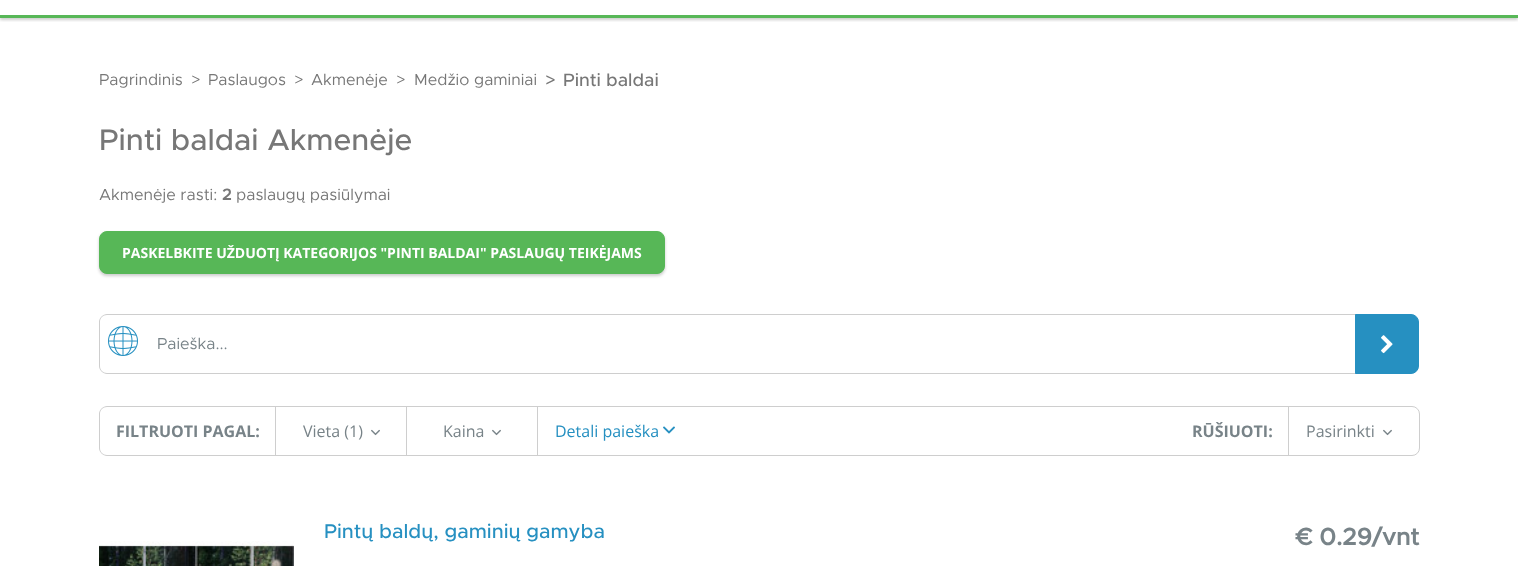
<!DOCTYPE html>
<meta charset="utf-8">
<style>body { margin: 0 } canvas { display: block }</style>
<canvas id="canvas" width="1518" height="566"></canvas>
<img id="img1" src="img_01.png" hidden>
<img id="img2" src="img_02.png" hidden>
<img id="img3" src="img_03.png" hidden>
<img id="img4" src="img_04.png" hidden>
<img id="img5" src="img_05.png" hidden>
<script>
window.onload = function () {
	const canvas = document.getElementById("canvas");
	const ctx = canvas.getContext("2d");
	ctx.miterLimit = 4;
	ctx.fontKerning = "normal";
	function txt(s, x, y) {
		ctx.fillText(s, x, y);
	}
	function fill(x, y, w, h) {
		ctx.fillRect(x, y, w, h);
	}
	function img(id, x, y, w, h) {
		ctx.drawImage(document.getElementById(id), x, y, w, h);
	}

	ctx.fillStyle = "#FFFFFF";
	fill(0, 0, 1518, 566);
	ctx.save();
	ctx.beginPath();
	ctx.rect(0, 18, 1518, 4);
	ctx.clip();
	ctx.fillStyle = "rgba(0, 0, 0, 0.2)";
	ctx.filter = "blur(1.5px)";
	ctx.beginPath();
	ctx.rect(0, -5, 1518, 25);
	ctx.fill();
	ctx.filter = "none";
	ctx.restore();
	ctx.fillStyle = "#57B757";
	fill(0, 15, 1518, 3);
	ctx.fillStyle = "rgba(0, 0, 0, 0.2)";
	ctx.filter = "blur(1.5px)";
	ctx.beginPath();
	ctx.roundRect(99, 233, 566, 43, 8);
	ctx.fill();
	ctx.filter = "none";
	ctx.fillStyle = "#57B757";
	ctx.beginPath();
	ctx.roundRect(99.5, 231.5, 565, 42, 7.5);
	ctx.fill();
	ctx.strokeStyle = "#57B757";
	ctx.stroke();
	ctx.fillStyle = "#CECECE";
	ctx.beginPath();
	ctx.moveTo(107, 314);
	ctx.lineTo(146, 314);
	ctx.lineTo(146, 374);
	ctx.lineTo(107, 374);
	ctx.bezierCurveTo(103, 374, 99, 370, 99, 366);
	ctx.lineTo(99, 322);
	ctx.bezierCurveTo(99, 318, 103, 314, 107, 314);
	ctx.closePath();
	ctx.moveTo(107, 315);
	ctx.lineTo(146, 315);
	ctx.lineTo(146, 373);
	ctx.lineTo(107, 373);
	ctx.bezierCurveTo(103, 373, 100, 370, 100, 366);
	ctx.lineTo(100, 322);
	ctx.bezierCurveTo(100, 318, 103, 315, 107, 315);
	ctx.closePath();
	ctx.fill("evenodd");
	img("img1", 108, 326, 30, 30);
	fill(145, 314, 1211, 1);
	fill(145, 373, 1211, 1);
	ctx.fillStyle = "#2690C1";
	ctx.beginPath();
	ctx.roundRect(1355.5, 314.5, 63, 59, [0, 7.5, 7.5, 0]);
	ctx.fill();
	ctx.strokeStyle = "#2690C1";
	ctx.stroke();
	img("img2", 1381, 335, 12, 19);
	ctx.fillStyle = "#CECECE";
	ctx.beginPath();
	ctx.moveTo(107, 406);
	ctx.lineTo(276, 406);
	ctx.lineTo(276, 456);
	ctx.lineTo(107, 456);
	ctx.bezierCurveTo(103, 456, 99, 452, 99, 448);
	ctx.lineTo(99, 414);
	ctx.bezierCurveTo(99, 410, 103, 406, 107, 406);
	ctx.closePath();
	ctx.moveTo(107, 407);
	ctx.lineTo(276, 407);
	ctx.lineTo(276, 455);
	ctx.lineTo(107, 455);
	ctx.bezierCurveTo(103, 455, 100, 452, 100, 448);
	ctx.lineTo(100, 414);
	ctx.bezierCurveTo(100, 410, 103, 407, 107, 407);
	ctx.closePath();
	ctx.fill("evenodd");
	ctx.strokeStyle = "#CECECE";
	ctx.strokeRect(275.5, 406.5, 131, 49);
	img("img3", 371, 429, 9, 7);
	ctx.strokeRect(406.5, 406.5, 131, 49);
	img("img3", 492, 429, 9, 7);
	fill(537, 406, 752, 1);
	fill(537, 455, 752, 1);
	img("img4", 663, 426, 12, 8);
	ctx.beginPath();
	ctx.roundRect(1288.5, 406.5, 131, 49, [0, 7.5, 7.5, 0]);
	ctx.stroke();
	img("img3", 1383, 429, 9, 7);
	img("img5", 99, 541, 195, 25);
	ctx.font = "16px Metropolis";
	ctx.fillStyle = "#777777";
	txt("Pagrindinis", 99, 85);
	txt(">", 191, 85);
	txt("Paslaugos", 208, 85);
	txt(">", 294, 85);
	txt("Akmenėje", 311, 85);
	txt(">", 396, 85);
	txt("Medžio gaminiai", 414, 85);
	ctx.font = "500 18px Metropolis";
	txt(">", 545, 86);
	txt("Pinti baldai", 563, 86);
	ctx.font = "500 30px Metropolis";
	txt("Pinti baldai Akmenėje", 99, 150);
	ctx.font = "16px Metropolis";
	txt("Akmenėje rasti:", 99, 200);
	ctx.font = "bold 16px Metropolis";
	txt("2", 222, 200);
	ctx.font = "16px Metropolis";
	txt("paslaugų pasiūlymai", 236, 200);
	ctx.font = "bold 14px Open Sans";
	ctx.fillStyle = "#FFFFFF";
	txt("PASKELBKITE UŽDUOTĮ KATEGORIJOS \"PINTI BALDAI\" PASLAUGŲ TEIKĖJAMS", 122, 258);
	ctx.font = "16px Metropolis";
	ctx.fillStyle = "#788388";
	txt("Paieška...", 157, 349);
	ctx.font = "bold 16px Open Sans";
	txt("FILTRUOTI PAGAL:", 116, 437);
	ctx.font = "16px Open Sans";
	txt("Vieta (1)", 303, 437);
	txt("Kaina", 443, 437);
	ctx.fillStyle = "#2690C1";
	txt("Detali paieška", 555, 437);
	ctx.font = "bold 16px Open Sans";
	ctx.fillStyle = "#788388";
	txt("RŪŠIUOTI:", 1192, 437);
	ctx.font = "16px Open Sans";
	txt("Pasirinkti", 1306, 437);
	ctx.font = "500 20px Metropolis";
	ctx.fillStyle = "#2690C1";
	txt("Pintų baldų, gaminių gamyba", 324, 538);
	ctx.font = "bold 24px Metropolis";
	ctx.fillStyle = "#788388";
	txt("€ 0.29/vnt", 1296, 545);
};
</script>
